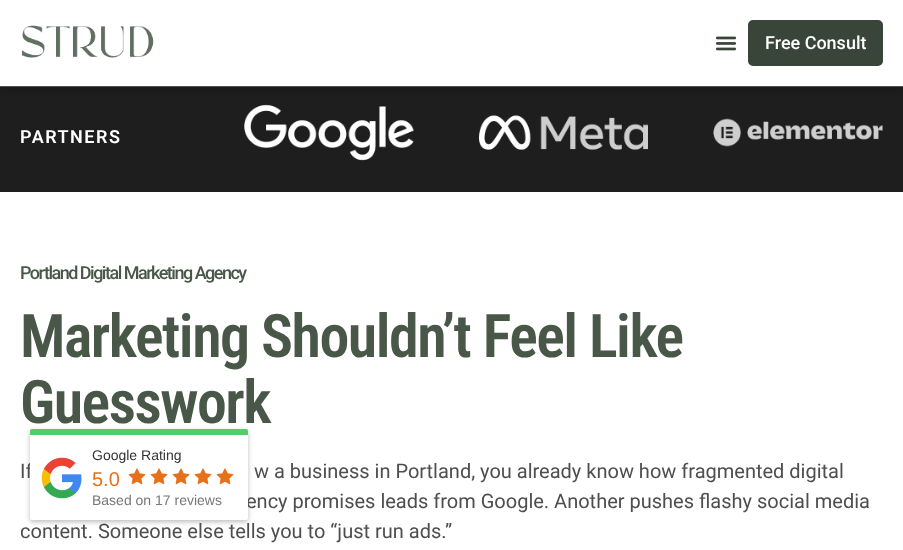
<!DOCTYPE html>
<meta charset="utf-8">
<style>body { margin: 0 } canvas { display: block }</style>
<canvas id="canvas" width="903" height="550"></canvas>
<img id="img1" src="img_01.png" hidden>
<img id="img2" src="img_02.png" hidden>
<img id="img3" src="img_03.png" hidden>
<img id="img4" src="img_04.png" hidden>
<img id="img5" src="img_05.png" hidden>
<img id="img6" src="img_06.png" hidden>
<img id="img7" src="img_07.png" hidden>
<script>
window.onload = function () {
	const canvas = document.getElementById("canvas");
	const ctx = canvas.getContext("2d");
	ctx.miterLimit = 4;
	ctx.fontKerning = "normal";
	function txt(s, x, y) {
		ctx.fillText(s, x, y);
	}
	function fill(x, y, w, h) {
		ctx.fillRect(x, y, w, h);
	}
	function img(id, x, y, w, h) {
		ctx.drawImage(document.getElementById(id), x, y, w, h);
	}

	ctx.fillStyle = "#FFFFFF";
	fill(0, 0, 903, 550);
	ctx.fillStyle = "#1E1E1E";
	fill(0, 87, 903, 105);
	ctx.fillStyle = "rgba(0, 0, 0, 0.35)";
	ctx.filter = "blur(5px)";
	ctx.beginPath();
	ctx.rect(0, 0, 903, 87);
	ctx.fill();
	ctx.filter = "none";
	ctx.fillStyle = "#FFFFFF";
	fill(0, 0, 903, 86);
	ctx.fillStyle = "#505050";
	fill(0, 86, 903, 1);
	img("img1", 21, 25, 133, 33);
	img("img2", 715, 36, 22, 15);
	ctx.fillStyle = "#3A4539";
	ctx.beginPath();
	ctx.roundRect(749, 21, 133, 44, 4);
	ctx.fill();
	ctx.strokeStyle = "#3A4539";
	ctx.lineWidth = 2;
	ctx.stroke();
	img("img3", 244, 104, 170, 57);
	img("img4", 479, 115, 169, 35);
	img("img5", 713, 118, 170, 29);
	ctx.fillStyle = "rgba(0, 0, 0, 0.26)";
	ctx.filter = "blur(2.5px)";
	ctx.beginPath();
	ctx.roundRect(30, 431, 218, 91, 2);
	ctx.fill();
	ctx.filter = "none";
	ctx.fillStyle = "#4FCE6A";
	ctx.beginPath();
	ctx.roundRect(30, 429, 218, 6, [2, 2, 0, 0]);
	ctx.fill();
	ctx.font = "500 18px Roboto";
	ctx.fillStyle = "#FFFFFF";
	txt("Free Consult", 765, 49);
	ctx.letterSpacing = "1.5px";
	ctx.font = "600 18px Roboto";
	txt("PARTNERS", 20, 143);
	ctx.letterSpacing = "-1.5px";
	ctx.font = "500 18px Roboto";
	ctx.fillStyle = "#495748";
	txt("Portland Digital Marketing Agency", 20, 279);
	ctx.font = "600 60px Roboto Condensed";
	txt("Marketing Shouldn’t Feel Like", 20, 357);
	txt("Guesswork", 20, 423);
	ctx.letterSpacing = "0px";
	ctx.font = "20px Roboto";
	ctx.fillStyle = "#4E4E4E";
	txt("If", 20, 478);
	txt("w a business in Portland, you already know how fragmented digital", 254, 478);
	txt("ency promises leads from Google. Another pushes flashy social media", 246, 508);
	txt("content. Someone else tells you to “just run ads.”", 20, 538);
	ctx.fillStyle = "#FFFFFF";
	ctx.beginPath();
	ctx.roundRect(30, 435, 218, 85, [0, 0, 2, 2]);
	ctx.fill();
	img("img6", 41, 457, 41, 42);
	ctx.font = "14px Liberation Sans";
	ctx.fillStyle = "#333333";
	txt("Google Rating", 92, 460);
	ctx.font = "20px Liberation Sans";
	ctx.fillStyle = "#E7711B";
	txt("5.0", 92, 486);
	img("img7", 128, 468, 18, 17);
	img("img7", 150, 468, 18, 17);
	img("img7", 172, 468, 18, 17);
	img("img7", 194, 468, 18, 17);
	img("img7", 216, 468, 18, 17);
	ctx.font = "14px Liberation Sans";
	ctx.fillStyle = "#777777";
	txt("Based on 17 reviews", 92, 505);
};
</script>
